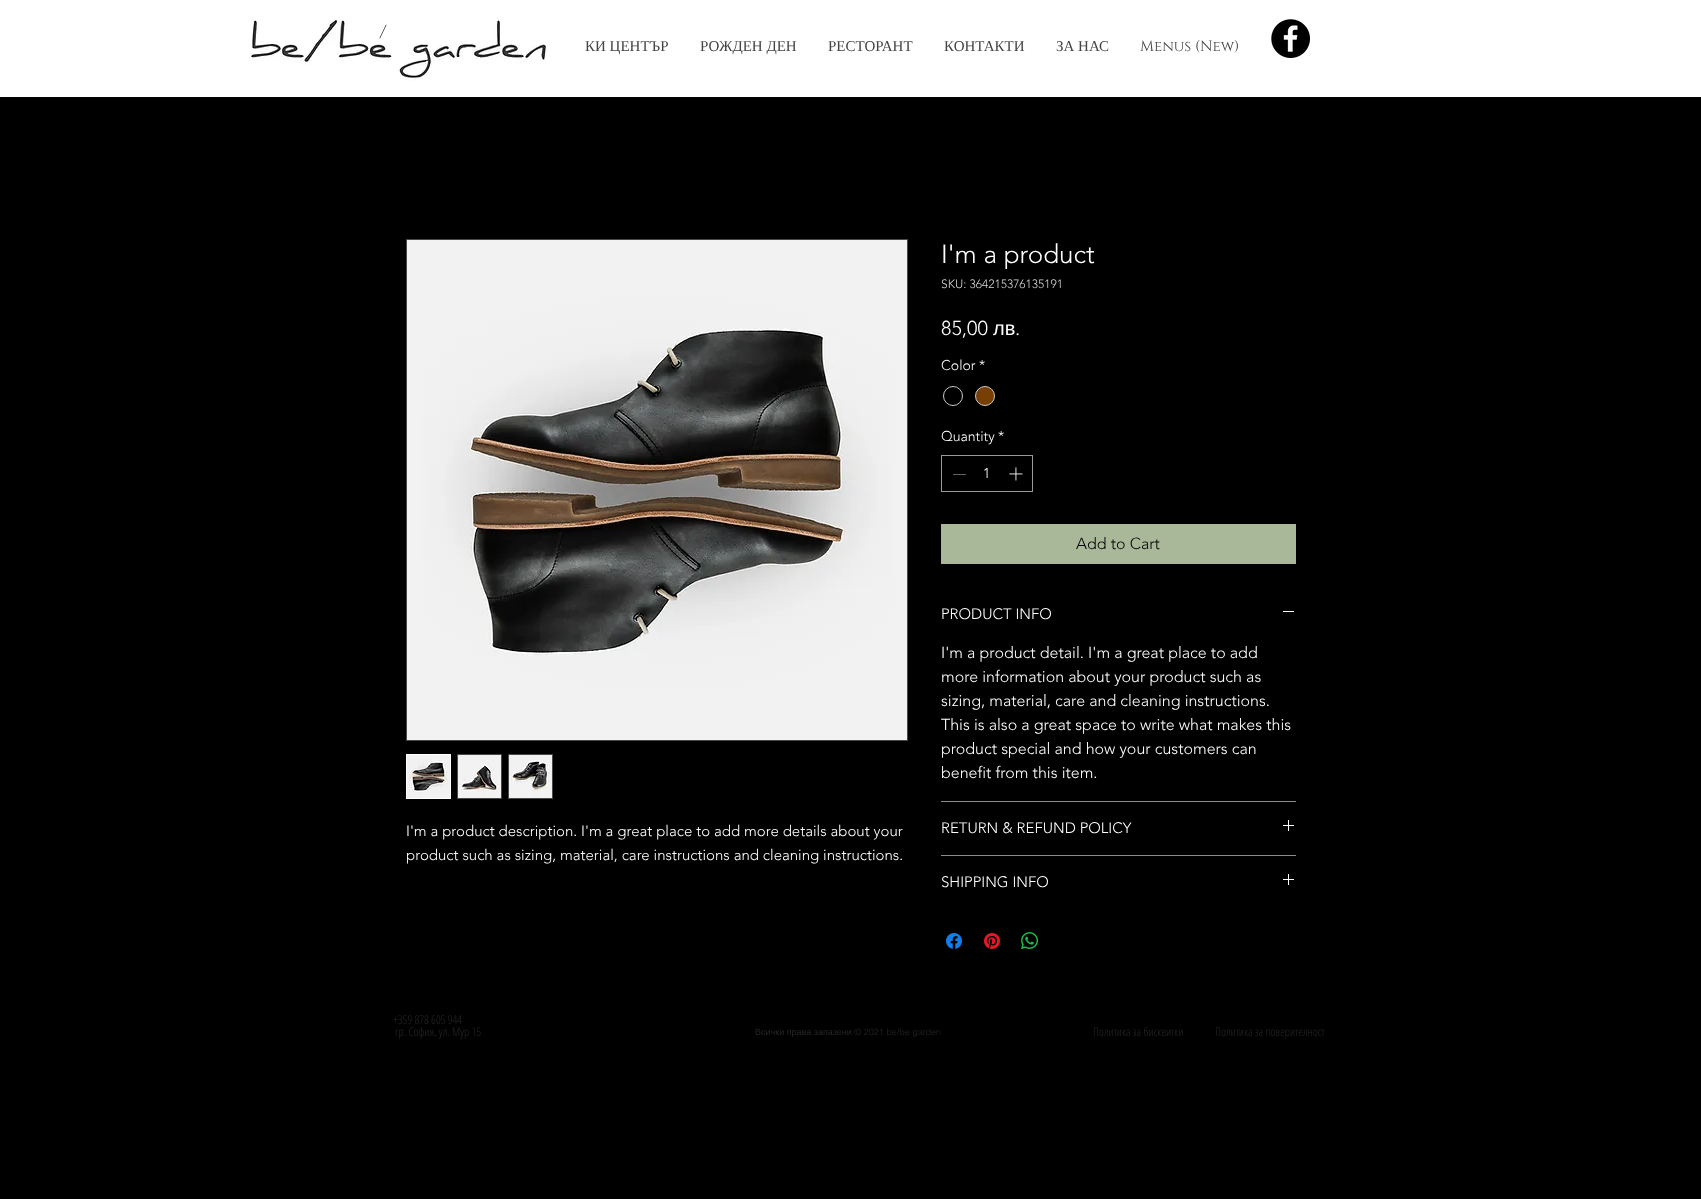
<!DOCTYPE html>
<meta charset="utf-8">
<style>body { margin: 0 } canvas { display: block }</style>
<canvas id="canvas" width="1701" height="1199"></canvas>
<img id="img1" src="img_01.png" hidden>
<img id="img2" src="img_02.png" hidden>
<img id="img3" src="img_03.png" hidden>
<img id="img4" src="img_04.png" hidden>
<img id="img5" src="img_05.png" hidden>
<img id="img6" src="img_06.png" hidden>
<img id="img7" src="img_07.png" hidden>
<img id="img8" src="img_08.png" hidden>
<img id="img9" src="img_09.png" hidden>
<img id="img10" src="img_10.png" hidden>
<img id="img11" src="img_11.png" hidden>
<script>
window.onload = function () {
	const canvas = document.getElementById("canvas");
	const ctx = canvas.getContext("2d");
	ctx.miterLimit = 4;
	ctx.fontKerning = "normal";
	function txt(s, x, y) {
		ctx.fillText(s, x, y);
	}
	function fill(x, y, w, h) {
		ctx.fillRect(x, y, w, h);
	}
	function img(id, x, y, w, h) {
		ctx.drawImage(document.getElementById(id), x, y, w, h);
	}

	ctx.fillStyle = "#000000";
	fill(0, 0, 1701, 1199);
	ctx.fillStyle = "#FFFFFF";
	fill(0, 0, 1701, 97);
	img("img1", 251, 17, 329, 64);
	img("img2", 1271, 19, 39, 39);
	ctx.fillStyle = "#282626";
	ctx.beginPath();
	ctx.moveTo(379.5, 38);
	ctx.lineTo(386, 24.5);
	ctx.lineTo(386.5, 25);
	ctx.lineTo(380, 38.5);
	ctx.closePath();
	ctx.fill();
	ctx.strokeStyle = "#4A4949";
	ctx.strokeRect(406.5, 239.5, 501, 501);
	img("img3", 407, 240, 500, 500);
	ctx.strokeStyle = "#FFFFFF";
	ctx.strokeRect(406.5, 754.5, 44, 44);
	img("img4", 407, 755, 43, 43);
	ctx.fillStyle = "#4A4949";
	fill(457, 754, 45, 45);
	img("img5", 458, 755, 43, 43);
	fill(508, 754, 45, 45);
	img("img6", 509, 755, 43, 43);
	ctx.beginPath();
	ctx.arc(953, 396, 9.5, 0, Math.PI * 2);
	ctx.strokeStyle = "#C9C9C9";
	ctx.stroke();
	ctx.fillStyle = "#783F04";
	ctx.beginPath();
	ctx.arc(985, 396, 9.5, 0, Math.PI * 2);
	ctx.fill();
	ctx.stroke();
	ctx.strokeStyle = "#999999";
	ctx.strokeRect(941.5, 455.5, 91, 36);
	ctx.fillStyle = "#646464";
	fill(953, 474, 13, 1);
	img("img7", 1009, 467, 14, 14);
	ctx.fillStyle = "#A8B899";
	fill(941, 524, 355, 40);
	ctx.fillStyle = "#8C8C8C";
	fill(941, 801, 355, 1);
	ctx.fillStyle = "#FFFFFF";
	fill(1283, 611, 11, 1);
	ctx.fillStyle = "#8C8C8C";
	fill(941, 855, 355, 1);
	img("img8", 1283, 820, 11, 11);
	img("img8", 1283, 874, 11, 11);
	img("img9", 946, 933, 16, 16);
	img("img10", 984, 933, 16, 16);
	img("img11", 1021, 932, 17, 17);
	ctx.font = "15px Liberation Serif";
	ctx.fillStyle = "#444444";
	txt("КИ ЦЕНТЪР", 585, 51);
	txt("РОЖДЕН ДЕН", 700, 51);
	txt("РЕСТОРАНТ", 828, 51);
	txt("КОНТАКТИ", 944, 51);
	txt("ЗА НАС", 1056, 51);
	ctx.font = "15px Cinzel";
	txt("Menus (New)", 1140, 51);
	ctx.font = "300 15px 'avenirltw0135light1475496'";
	ctx.fillStyle = "#FFFFFF";
	txt("I'm a product description. I'm a great place to add more details about your", 406, 836);
	txt("product such as sizing, material, care instructions and cleaning instructions.", 406, 860);
	ctx.font = "300 26px 'avenirltw0135light1475496'";
	txt("I'm a product", 941, 263);
	ctx.font = "300 12px 'avenirltw0135light1475496'";
	ctx.fillStyle = "#D4D4D4";
	txt("SKU: 364215376135191", 941, 288);
	ctx.font = "300 20px 'avenirltw0135light1475496'";
	ctx.fillStyle = "#FFFFFF";
	txt("85,00", 941, 335);
	ctx.font = "20px Liberation Sans";
	txt("лв", 993, 335);
	ctx.font = "300 20px 'avenirltw0135light1475496'";
	txt(".", 1015, 335);
	ctx.font = "300 14px 'avenirltw0135light1475496'";
	txt("Color", 941, 370);
	txt("*", 979, 370);
	txt("Quantity", 941, 441);
	txt("*", 998, 441);
	txt("1", 983, 478);
	ctx.font = "300 16px 'avenirltw0135light1475496'";
	ctx.fillStyle = "#000000";
	txt("Add to Cart", 1076, 549);
	ctx.font = "300 15px 'avenirltw0135light1475496'";
	ctx.fillStyle = "#FFFFFF";
	txt("PRODUCT INFO", 941, 619);
	ctx.font = "300 16px 'avenirltw0135light1475496'";
	txt("I'm a product detail. I'm a great place to add", 941, 658);
	txt("more information about your product such as", 941, 682);
	txt("sizing, material, care and cleaning instructions.", 941, 706);
	txt("This is also a great space to write what makes this", 941, 730);
	txt("product special and how your customers can", 941, 754);
	txt("benefit from this item.", 941, 778);
	ctx.font = "300 15px 'avenirltw0135light1475496'";
	txt("RETURN & REFUND POLICY", 941, 833);
	txt("SHIPPING INFO", 941, 887);
	ctx.font = "300 12px Open Sans Condensed";
	ctx.fillStyle = "#282626";
	txt("+359 878 605 944", 393, 1024);
	txt("гр. София, ул. Мур 15", 395, 1036);
	ctx.font = "9px Liberation Sans";
	txt("Всички права запазени", 755, 1035);
	ctx.font = "300 9px helvetica";
	txt("© 2021 be/be garden", 854, 1035);
	ctx.font = "300 12px Open Sans Condensed";
	txt("Политика за бисквитки", 1093, 1036);
	txt("Политика за поверителност", 1215, 1036);
};
</script>
